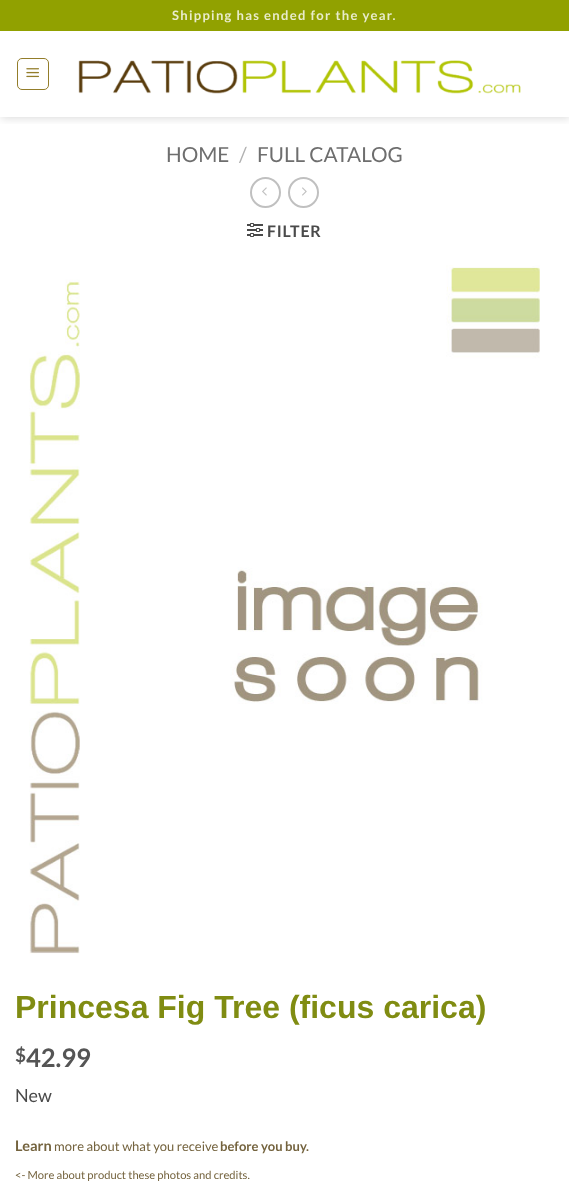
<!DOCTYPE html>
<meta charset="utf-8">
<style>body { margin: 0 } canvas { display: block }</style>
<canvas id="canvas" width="569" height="1193"></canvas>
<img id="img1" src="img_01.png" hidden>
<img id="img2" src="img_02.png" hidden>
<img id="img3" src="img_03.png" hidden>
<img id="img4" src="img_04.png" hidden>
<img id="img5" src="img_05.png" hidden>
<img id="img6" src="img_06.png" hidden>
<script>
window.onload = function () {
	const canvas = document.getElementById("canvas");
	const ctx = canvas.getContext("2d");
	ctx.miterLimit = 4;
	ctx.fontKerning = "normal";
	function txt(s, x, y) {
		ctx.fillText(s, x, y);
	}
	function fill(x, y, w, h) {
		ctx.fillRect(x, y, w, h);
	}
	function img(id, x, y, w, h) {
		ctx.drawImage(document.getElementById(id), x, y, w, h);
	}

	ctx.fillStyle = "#FFFFFF";
	fill(0, 0, 569, 1193);
	ctx.save();
	ctx.beginPath();
	ctx.rect(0, 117, 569, 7);
	ctx.clip();
	ctx.fillStyle = "rgba(0, 0, 0, 0.15)";
	ctx.filter = "blur(5px)";
	ctx.beginPath();
	ctx.rect(1, 1, 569, 117);
	ctx.fill();
	ctx.filter = "none";
	ctx.restore();
	ctx.fillStyle = "#91A100";
	fill(0, 0, 569, 31);
	ctx.beginPath();
	ctx.roundRect(17.5, 58.5, 31, 31, 4.5);
	ctx.strokeStyle = "#937D2A";
	ctx.stroke();
	img("img1", 26, 68, 13, 10);
	img("img2", 78, 60, 443, 34);
	ctx.beginPath();
	ctx.arc(265.5, 192.5, 14.5, 0, Math.PI * 2);
	ctx.strokeStyle = "#C0C0C0";
	ctx.lineWidth = 2;
	ctx.stroke();
	img("img3", 262, 187, 5, 9);
	ctx.beginPath();
	ctx.arc(303.5, 192.5, 14.5, 0, Math.PI * 2);
	ctx.stroke();
	img("img4", 302, 187, 5, 9);
	img("img5", 247, 223, 16, 14);
	img("img6", 29, 265, 511, 689);
	ctx.letterSpacing = "1.3px";
	ctx.font = "bold 13px Lato";
	ctx.fillStyle = "#E9ECCC";
	txt("Shipping has ended for the year.", 172, 20);
	ctx.letterSpacing = "0px";
	ctx.font = "20.75px Lato";
	ctx.fillStyle = "#6E6E6E";
	txt("HOME", 166, 162);
	ctx.fillStyle = "#B2B2B2";
	txt("/", 239, 162);
	ctx.fillStyle = "#6E6E6E";
	txt("FULL CATALOG", 257, 162);
	ctx.letterSpacing = "0.75px";
	ctx.font = "bold 16px Lato";
	ctx.fillStyle = "#4A4A4A";
	txt("FILTER", 267, 237);
	ctx.letterSpacing = "0px";
	ctx.font = "bold 32px Liberation Sans";
	ctx.fillStyle = "#808C12";
	txt("Princesa Fig Tree (ficus carica)", 15, 1018);
	ctx.font = "bold 19px Lato";
	ctx.fillStyle = "#555555";
	txt("$", 15, 1062);
	ctx.font = "bold 25.5px Lato";
	txt("42.99", 26, 1067);
	ctx.font = "18px Lato";
	ctx.fillStyle = "#4A4A4A";
	txt("New", 15, 1102);
	ctx.font = "bold 14.5px Lato";
	ctx.fillStyle = "#74633E";
	txt("Learn", 15, 1151);
	ctx.font = "13px Lato";
	txt("more about what you receive", 54, 1151);
	ctx.font = "bold 13px Lato";
	txt("before you buy.", 220, 1151);
	ctx.font = "11.2px Lato";
	txt("<- More about product these photos and credits.", 15, 1179);
};
</script>
